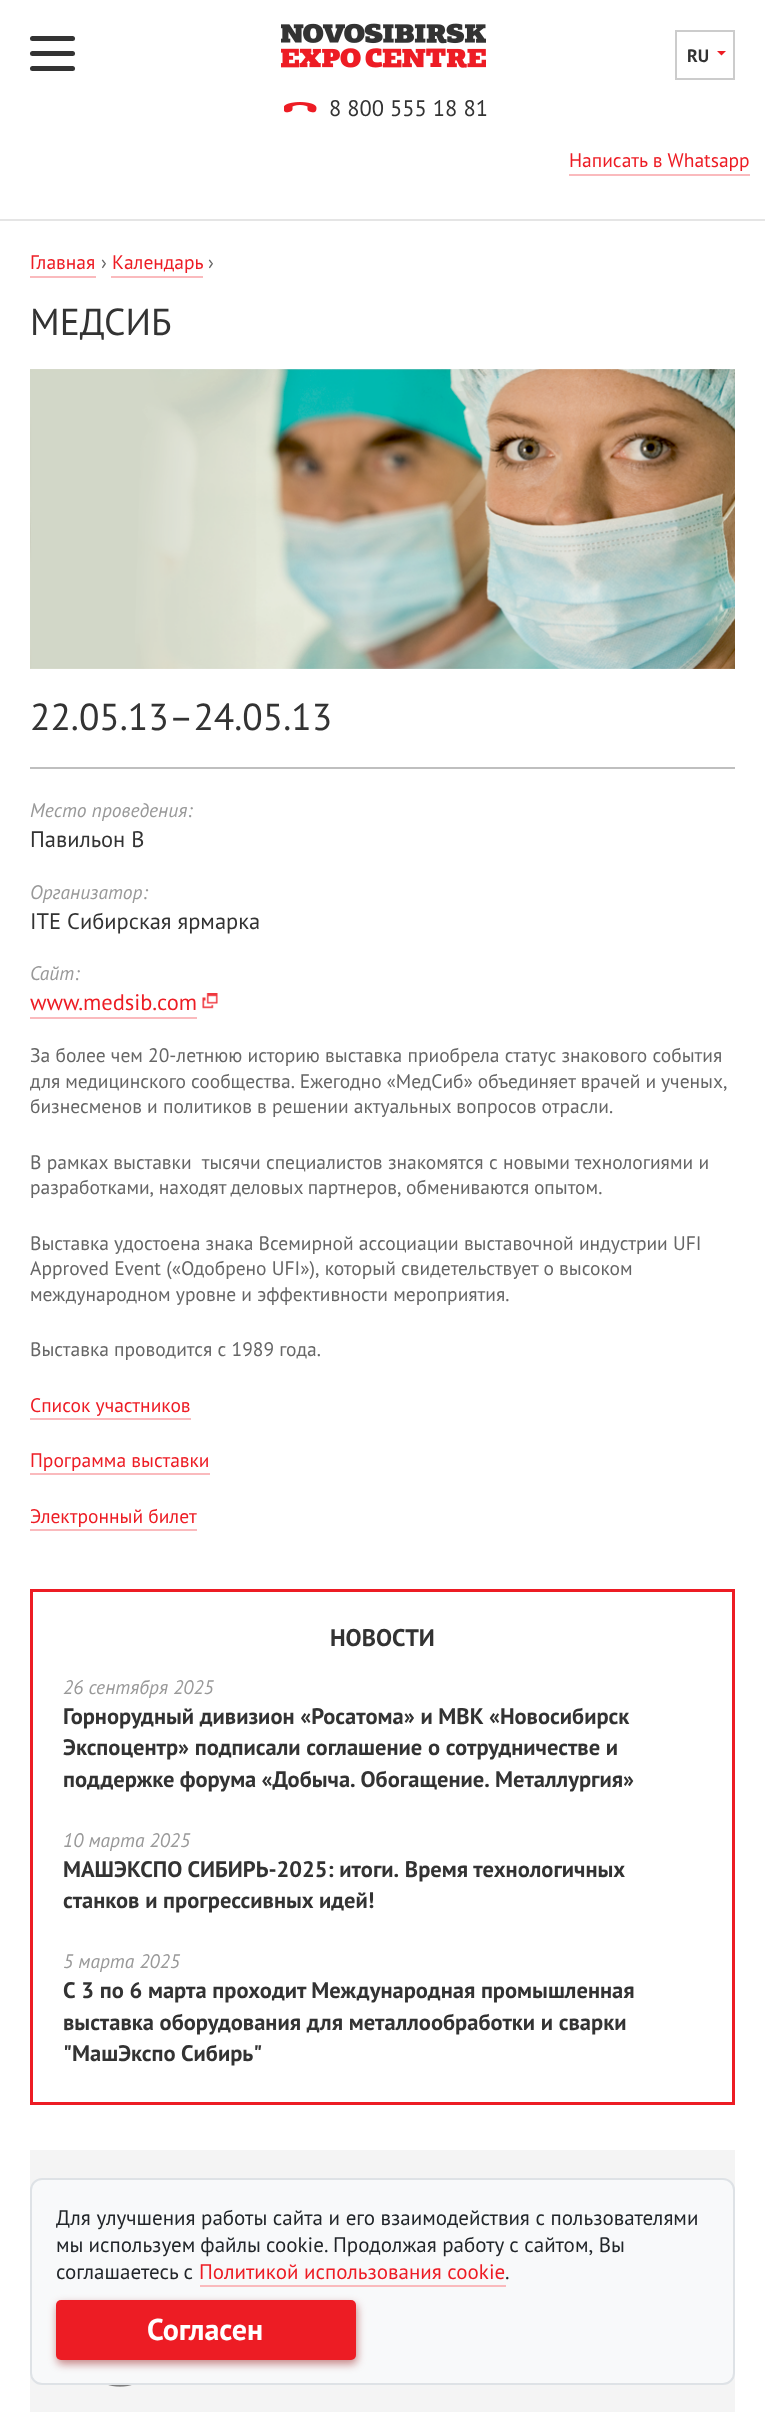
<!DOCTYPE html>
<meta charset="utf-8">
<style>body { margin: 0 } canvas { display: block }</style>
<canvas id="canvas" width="765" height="2414"></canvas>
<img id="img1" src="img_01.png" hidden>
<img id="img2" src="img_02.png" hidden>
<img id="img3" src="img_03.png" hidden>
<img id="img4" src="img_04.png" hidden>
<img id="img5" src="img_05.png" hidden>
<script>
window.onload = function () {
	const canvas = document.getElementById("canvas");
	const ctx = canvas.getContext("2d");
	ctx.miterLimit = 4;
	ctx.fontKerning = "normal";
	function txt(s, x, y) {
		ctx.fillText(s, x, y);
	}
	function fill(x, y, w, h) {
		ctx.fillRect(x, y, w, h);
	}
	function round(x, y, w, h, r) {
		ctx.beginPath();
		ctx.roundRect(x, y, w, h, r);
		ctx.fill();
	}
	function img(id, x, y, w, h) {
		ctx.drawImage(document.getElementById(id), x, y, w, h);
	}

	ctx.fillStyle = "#FFFFFF";
	fill(0, 0, 765, 2414);
	ctx.fillStyle = "#333333";
	round(30, 51, 45, 5, 2.5);
	round(30, 36, 45, 5, 2.5);
	round(30, 66, 45, 5, 2.5);
	ctx.fillStyle = "#E5E5E5";
	fill(0, 219, 765, 2);
	img("img1", 281, 23, 205, 45);
	ctx.strokeStyle = "#CCCCCC";
	ctx.lineWidth = 2;
	ctx.strokeRect(676, 31, 58, 48);
	ctx.fillStyle = "#ED1C24";
	ctx.beginPath();
	ctx.moveTo(717, 51);
	ctx.lineTo(726, 51);
	ctx.lineTo(721.5, 55.5);
	ctx.closePath();
	ctx.fill();
	img("img2", 284, 102, 33, 11);
	ctx.fillStyle = "#FABABD";
	fill(569, 174, 181, 2);
	fill(30, 276, 66, 2);
	fill(111, 276, 92, 2);
	img("img3", 30, 369, 705, 300);
	ctx.fillStyle = "#BFBFBF";
	fill(30, 767, 705, 2);
	ctx.fillStyle = "#FABABD";
	fill(30, 1017, 167, 2);
	img("img4", 202, 993, 16, 16);
	fill(30, 1418, 161, 2);
	fill(30, 1473, 180, 2);
	fill(30, 1529, 167, 2);
	ctx.strokeStyle = "#ED1C24";
	ctx.lineWidth = 3;
	ctx.strokeRect(31.5, 1590.5, 702, 513);
	ctx.fillStyle = "#F4F4F4";
	fill(30, 2150, 705, 40);
	fill(30, 2373, 705, 39);
	img("img5", 108, 2385, 24, 2);
	ctx.fillStyle = "#F8F9FA";
	ctx.beginPath();
	ctx.roundRect(31, 2179, 703, 205, 11);
	ctx.fill();
	ctx.strokeStyle = "#DEE2E6";
	ctx.lineWidth = 2;
	ctx.stroke();
	ctx.fillStyle = "#FABABD";
	fill(200, 2285, 306, 2);
	ctx.fillStyle = "rgba(150, 20, 20, 0.5)";
	ctx.filter = "blur(4px)";
	ctx.beginPath();
	ctx.roundRect(57, 2304, 300, 60, 5);
	ctx.fill();
	ctx.filter = "none";
	ctx.fillStyle = "#ED1C24";
	round(56, 2300, 300, 60, 5);
	ctx.font = "bold 18px PT Sans";
	ctx.fillStyle = "#333333";
	txt("RU", 687, 62);
	ctx.font = "22.5px PT Sans";
	txt("8 800 555 18 81", 329, 116);
	ctx.font = "19.5px PT Sans";
	ctx.fillStyle = "#ED1C24";
	txt("Написать в Whatsapp", 569, 167);
	txt("Главная", 30, 269);
	ctx.fillStyle = "#666666";
	txt("›", 101, 269);
	ctx.fillStyle = "#ED1C24";
	txt("Календарь", 112, 269);
	ctx.fillStyle = "#666666";
	txt("›", 208, 269);
	ctx.font = "37.5px PT Sans";
	ctx.fillStyle = "#333333";
	txt("МЕДСИБ", 30, 335);
	txt("22.05.13–24.05.13", 30, 730);
	ctx.font = "italic 19.5px PT Sans";
	ctx.fillStyle = "#999999";
	txt("Место проведения:", 30, 817);
	ctx.font = "22.5px PT Sans";
	ctx.fillStyle = "#333333";
	txt("Павильон B", 30, 847);
	ctx.font = "italic 19.5px PT Sans";
	ctx.fillStyle = "#999999";
	txt("Организатор:", 30, 899);
	ctx.font = "22.5px PT Sans";
	ctx.fillStyle = "#333333";
	txt("ITE Сибирская ярмарка", 30, 929);
	ctx.font = "italic 19.5px PT Sans";
	ctx.fillStyle = "#999999";
	txt("Сайт:", 30, 980);
	ctx.font = "22.5px PT Sans";
	ctx.fillStyle = "#ED1C24";
	txt("www.medsib.com", 30, 1010);
	ctx.font = "19.5px PT Sans";
	ctx.fillStyle = "#666666";
	txt("За более чем 20-летнюю историю выставка приобрела статус знакового события", 30, 1062);
	ctx.wordSpacing = "-0.25px";
	txt("для медицинского сообщества. Ежегодно «МедСиб» объединяет врачей и ученых,", 30, 1088);
	ctx.wordSpacing = "0px";
	txt("бизнесменов и политиков в решении актуальных вопросов отрасли.", 30, 1113);
	ctx.wordSpacing = "0.1px";
	txt("В рамках выставки  тысячи специалистов знакомятся с новыми технологиями и", 30, 1169);
	ctx.wordSpacing = "-0.5px";
	txt("разработками, находят деловых партнеров, обмениваются опытом.", 30, 1194);
	ctx.wordSpacing = "0px";
	txt("Выставка удостоена знака Всемирной ассоциации выставочной индустрии UFI", 30, 1250);
	txt("Approved Event («Одобрено UFI»), который свидетельствует о высоком", 30, 1275);
	txt("международном уровне и эффективности мероприятия.", 30, 1301);
	txt("Выставка проводится с 1989 года.", 30, 1356);
	ctx.fillStyle = "#ED1C24";
	txt("Список участников", 30, 1412);
	txt("Программа выставки", 30, 1467);
	txt("Электронный билет", 30, 1523);
	ctx.font = "bold 24px PT Sans";
	ctx.fillStyle = "#333333";
	txt("НОВОСТИ", 330, 1646);
	ctx.font = "italic 19.5px PT Sans";
	ctx.fillStyle = "#999999";
	txt("26 сентября 2025", 63, 1694);
	ctx.font = "bold 22.5px PT Sans";
	ctx.fillStyle = "#333333";
	txt("Горнорудный дивизион «Росатома» и МВК «Новосибирск", 63, 1724);
	txt("Экспоцентр» подписали соглашение о сотрудничестве и", 63, 1755);
	ctx.wordSpacing = "-0.5px";
	txt("поддержке форума «Добыча. Обогащение. Металлургия»", 63, 1787);
	ctx.wordSpacing = "0px";
	ctx.font = "italic 19.5px PT Sans";
	ctx.fillStyle = "#999999";
	txt("10 марта 2025", 63, 1847);
	ctx.font = "bold 22.5px PT Sans";
	ctx.fillStyle = "#333333";
	txt("МАШЭКСПО СИБИРЬ-2025: итоги. Время технологичных", 63, 1877);
	txt("станков и прогрессивных идей!", 63, 1908);
	ctx.font = "italic 19.5px PT Sans";
	ctx.fillStyle = "#999999";
	txt("5 марта 2025", 63, 1968);
	ctx.font = "bold 22.5px PT Sans";
	ctx.fillStyle = "#333333";
	txt("C 3 по 6 марта проходит Международная промышленная", 63, 1998);
	txt("выставка оборудования для металлообработки и сварки", 63, 2030);
	txt("\"МашЭкспо Сибирь\"", 63, 2061);
	ctx.font = "21px PT Sans";
	ctx.fillStyle = "#212529";
	txt("Для улучшения работы сайта и его взаимодействия с пользователями", 56, 2225);
	ctx.wordSpacing = "-0.5px";
	txt("мы используем файлы cookie.", 56, 2252);
	ctx.wordSpacing = "0px";
	txt("Продолжая работу с сайтом, Вы", 333, 2252);
	txt("соглашаетесь с", 56, 2279);
	ctx.fillStyle = "#ED1C24";
	txt("Политикой использования cookie", 199, 2279);
	ctx.fillStyle = "#212529";
	txt(".", 505, 2279);
	ctx.font = "bold 30px PT Sans";
	ctx.fillStyle = "#FFFFFF";
	txt("Согласен", 147, 2340);
};
</script>
